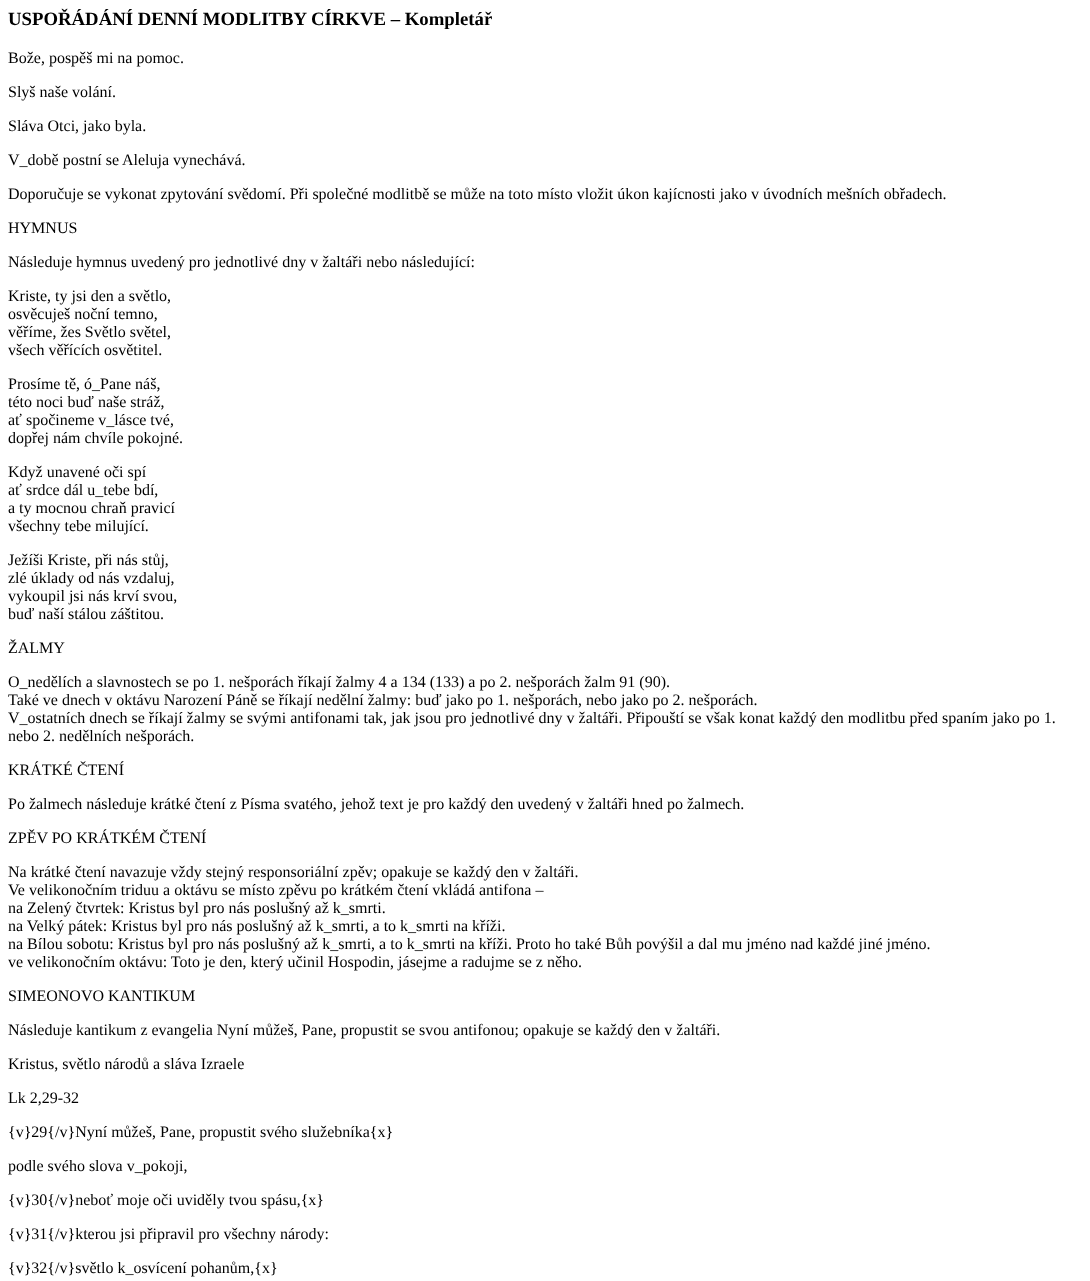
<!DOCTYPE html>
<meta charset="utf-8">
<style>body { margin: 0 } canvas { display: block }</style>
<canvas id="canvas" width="1090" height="1281"></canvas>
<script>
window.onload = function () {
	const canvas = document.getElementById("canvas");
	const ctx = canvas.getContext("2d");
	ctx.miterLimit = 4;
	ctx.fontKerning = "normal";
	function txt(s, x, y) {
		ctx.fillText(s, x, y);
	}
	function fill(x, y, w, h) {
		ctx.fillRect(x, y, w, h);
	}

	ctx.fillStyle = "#FFFFFF";
	fill(0, 0, 1090, 1281);
	ctx.font = "bold 18.75px Liberation Serif";
	ctx.fillStyle = "#000000";
	txt("USPOŘÁDÁNÍ DENNÍ MODLITBY CÍRKVE – Kompletář", 8, 25);
	ctx.font = "16px Liberation Serif";
	txt("Bože, pospěš mi na pomoc.", 8, 63);
	txt("Slyš naše volání.", 8, 97);
	txt("Sláva Otci, jako byla.", 8, 131);
	txt("V_době postní se", 8, 165);
	txt("Aleluja vynechává.", 122, 165);
	txt("Doporučuje se vykonat zpytování svědomí. Při společné modlitbě se může na toto místo vložit úkon kajícnosti jako v úvodních mešních obřadech.", 8, 199);
	txt("HYMNUS", 8, 233);
	txt("Následuje hymnus uvedený pro jednotlivé dny v žaltáři nebo následující:", 8, 267);
	txt("Kriste, ty jsi den a světlo,", 8, 301);
	txt("osvěcuješ noční temno,", 8, 319);
	txt("věříme, žes Světlo světel,", 8, 337);
	txt("všech věřících osvětitel.", 8, 355);
	txt("Prosíme tě, ó_Pane náš,", 8, 389);
	txt("této noci buď naše stráž,", 8, 407);
	txt("ať spočineme v_lásce tvé,", 8, 425);
	txt("dopřej nám chvíle pokojné.", 8, 443);
	txt("Když unavené oči spí", 8, 477);
	txt("ať srdce dál u_tebe bdí,", 8, 495);
	txt("a ty mocnou chraň pravicí", 8, 513);
	txt("všechny tebe milující.", 8, 531);
	txt("Ježíši Kriste, při nás stůj,", 8, 565);
	txt("zlé úklady od nás vzdaluj,", 8, 583);
	txt("vykoupil jsi nás krví svou,", 8, 601);
	txt("buď naší stálou záštitou.", 8, 619);
	txt("ŽALMY", 8, 653);
	txt("O_nedělích a slavnostech se po 1. nešporách říkají žalmy 4 a 134 (133) a po 2. nešporách žalm 91 (90).", 8, 687);
	txt("Také ve dnech v oktávu Narození Páně se říkají nedělní žalmy: buď jako po 1. nešporách, nebo jako po 2. nešporách.", 8, 705);
	txt("V_ostatních dnech se říkají žalmy se svými antifonami tak, jak jsou pro jednotlivé dny v žaltáři. Připouští se však konat každý den modlitbu před spaním jako po 1.", 8, 723);
	txt("nebo 2. nedělních nešporách.", 8, 741);
	txt("KRÁTKÉ ČTENÍ", 8, 775);
	txt("Po žalmech následuje krátké čtení z Písma svatého, jehož text je pro každý den uvedený v žaltáři hned po žalmech.", 8, 809);
	txt("ZPĚV PO KRÁTKÉM ČTENÍ", 8, 843);
	txt("Na krátké čtení navazuje vždy stejný responsoriální zpěv; opakuje se každý den v žaltáři.", 8, 877);
	txt("Ve velikonočním triduu a oktávu se místo zpěvu po krátkém čtení vkládá antifona –", 8, 895);
	txt("na Zelený čtvrtek: Kristus byl pro nás poslušný až k_smrti.", 8, 913);
	txt("na Velký pátek: Kristus byl pro nás poslušný až k_smrti, a to k_smrti na kříži.", 8, 931);
	txt("na Bílou sobotu: Kristus byl pro nás poslušný až k_smrti, a to k_smrti na kříži. Proto ho také Bůh povýšil a dal mu jméno nad každé jiné jméno.", 8, 949);
	txt("ve velikonočním oktávu: Toto je den, který učinil Hospodin, jásejme a radujme se z něho.", 8, 967);
	txt("SIMEONOVO KANTIKUM", 8, 1001);
	txt("Následuje kantikum z evangelia Nyní můžeš, Pane, propustit se svou antifonou; opakuje se každý den v žaltáři.", 8, 1035);
	txt("Kristus, světlo národů a sláva Izraele", 8, 1069);
	txt("Lk 2,29-32", 8, 1103);
	txt("{v}29{/v}Nyní můžeš, Pane, propustit svého služebníka{x}", 8, 1137);
	txt("podle svého slova v_pokoji,", 8, 1171);
	txt("{v}30{/v}neboť moje oči uviděly tvou spásu,{x}", 8, 1205);
	txt("{v}31{/v}kterou jsi připravil pro všechny národy:", 8, 1239);
	txt("{v}32{/v}světlo k_osvícení pohanům,{x}", 8, 1273);
};
</script>
